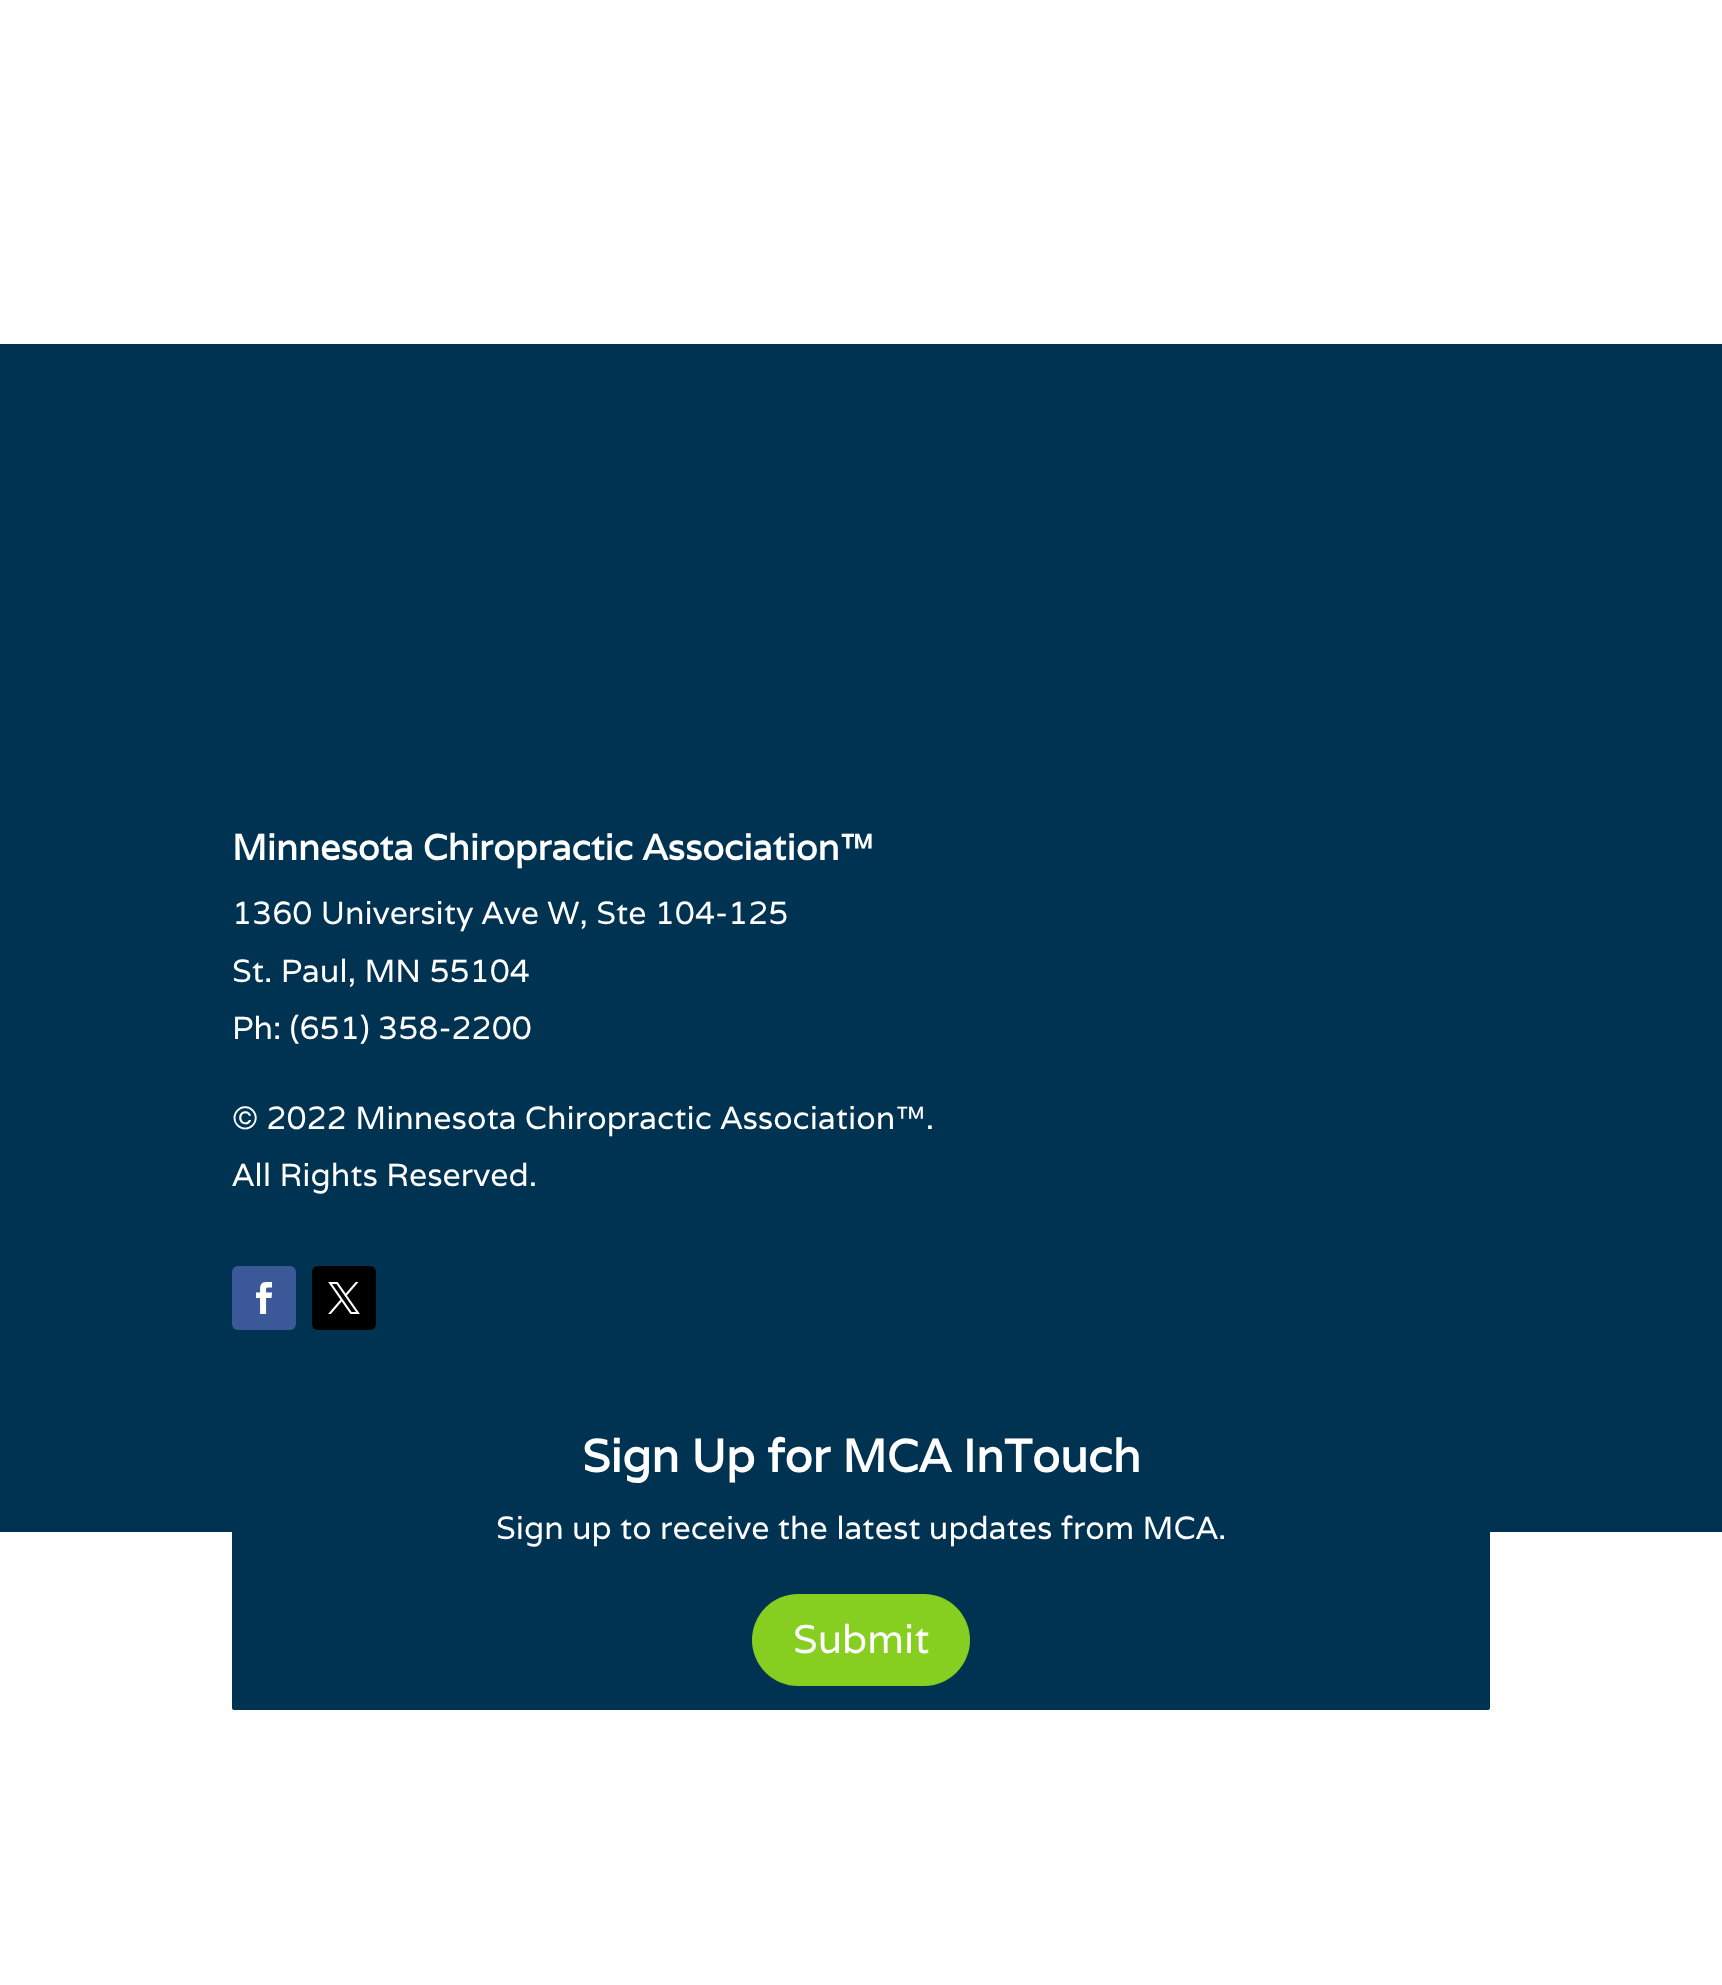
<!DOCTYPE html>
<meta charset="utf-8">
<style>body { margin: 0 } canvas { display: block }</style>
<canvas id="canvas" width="1722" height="1985"></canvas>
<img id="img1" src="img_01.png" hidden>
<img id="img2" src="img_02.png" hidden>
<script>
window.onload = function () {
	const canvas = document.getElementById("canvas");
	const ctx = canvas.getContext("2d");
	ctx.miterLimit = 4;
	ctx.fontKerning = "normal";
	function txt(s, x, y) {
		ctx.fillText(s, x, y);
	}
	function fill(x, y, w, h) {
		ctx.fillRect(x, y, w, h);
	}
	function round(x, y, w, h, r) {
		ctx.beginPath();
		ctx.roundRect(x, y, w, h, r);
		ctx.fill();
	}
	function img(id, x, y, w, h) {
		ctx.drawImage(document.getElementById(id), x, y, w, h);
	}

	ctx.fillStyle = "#FFFFFF";
	fill(0, 0, 1722, 1985);
	ctx.fillStyle = "#003351";
	fill(0, 344, 1722, 1188);
	ctx.fillStyle = "#3B5998";
	round(232, 1266, 64, 64, 6);
	img("img1", 256, 1282, 17, 32);
	ctx.fillStyle = "#000000";
	round(312, 1266, 64, 64, 6);
	img("img2", 328, 1282, 32, 32);
	ctx.fillStyle = "#003351";
	round(232, 1406, 1258, 304, 2);
	ctx.fillStyle = "#86CF20";
	round(752, 1594, 218, 92, 46);
	ctx.font = "bold 36px Varela";
	ctx.fillStyle = "#FFFFFF";
	txt("Minnesota Chiropractic Association™", 232, 860);
	ctx.font = "32px Varela";
	txt("1360 University Ave W, Ste 104-125", 232, 924);
	txt("St. Paul, MN 55104", 232, 982);
	txt("Ph: (651) 358-2200", 232, 1039);
	txt("© 2022 Minnesota Chiropractic Association™.", 232, 1129);
	txt("All Rights Reserved.", 232, 1186);
	ctx.font = "bold 46px Varela";
	txt("Sign Up for MCA InTouch", 582, 1472);
	ctx.font = "32px Varela";
	txt("Sign up to receive the latest updates from MCA.", 496, 1539);
	ctx.font = "40px Varela";
	txt("Submit", 793, 1653);
};
</script>
